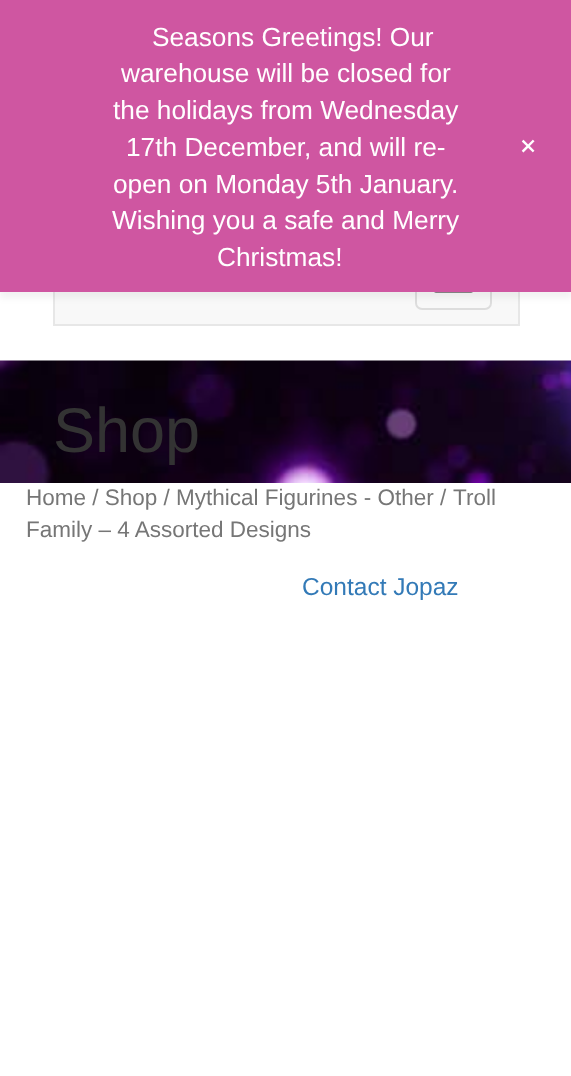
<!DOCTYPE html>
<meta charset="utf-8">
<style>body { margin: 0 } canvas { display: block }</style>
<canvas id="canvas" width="571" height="1076"></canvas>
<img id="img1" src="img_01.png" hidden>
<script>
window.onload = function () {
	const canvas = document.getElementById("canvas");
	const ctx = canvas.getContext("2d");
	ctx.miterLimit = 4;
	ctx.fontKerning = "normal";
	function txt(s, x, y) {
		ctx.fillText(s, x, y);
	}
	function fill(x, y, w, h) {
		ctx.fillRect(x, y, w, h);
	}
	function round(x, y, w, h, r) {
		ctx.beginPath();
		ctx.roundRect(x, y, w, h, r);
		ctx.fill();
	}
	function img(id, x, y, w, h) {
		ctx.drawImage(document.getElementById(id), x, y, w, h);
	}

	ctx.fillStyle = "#FFFFFF";
	fill(0, 0, 571, 1076);
	ctx.fillStyle = "#F8F8F8";
	fill(55, 292, 463, 32);
	ctx.strokeStyle = "#E7E7E7";
	ctx.lineWidth = 2;
	ctx.strokeRect(54, 236, 465, 89);
	ctx.beginPath();
	ctx.roundRect(416, 251, 75, 58, 6);
	ctx.strokeStyle = "#DDDDDD";
	ctx.stroke();
	ctx.fillStyle = "#888888";
	round(434, 289, 39, 4, 2);
	ctx.fillStyle = "rgba(0, 0, 0, 0.05)";
	ctx.filter = "blur(3.5px)";
	ctx.beginPath();
	ctx.rect(0, 5, 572, 293);
	ctx.fill();
	ctx.filter = "none";
	ctx.fillStyle = "#CF56A1";
	fill(0, 0, 571, 292);
	img("img1", 0, 360, 571, 123);
	ctx.font = "26.25px Liberation Sans";
	ctx.fillStyle = "#FFFFFF";
	txt("Seasons Greetings! Our", 152, 46);
	txt("warehouse will be closed for", 121, 82);
	txt("the holidays from Wednesday", 113, 119);
	txt("17th December, and will re-", 126, 156);
	txt("open on Monday 5th January.", 113, 193);
	txt("Wishing you a safe and Merry", 112, 229);
	txt("Christmas!", 217, 266);
	ctx.font = "32px Liberation Sans";
	ctx.save();
	ctx.translate(514, 147);
	ctx.rotate(45 * Math.PI / 180);
	ctx.fillText("+", 0, 0);
	ctx.restore();
	ctx.font = "63px Liberation Sans";
	ctx.fillStyle = "#333333";
	txt("Shop", 53, 452);
	ctx.font = "22.5px Liberation Sans";
	ctx.fillStyle = "#767676";
	txt("Home / Shop / Mythical Figurines - Other /", 26, 505);
	txt("Troll", 453, 505);
	txt("Family – 4 Assorted Designs", 26, 537);
	ctx.font = "24.5px Liberation Sans";
	ctx.fillStyle = "#337AB7";
	txt("Contact Jopaz", 302, 595);
};
</script>
